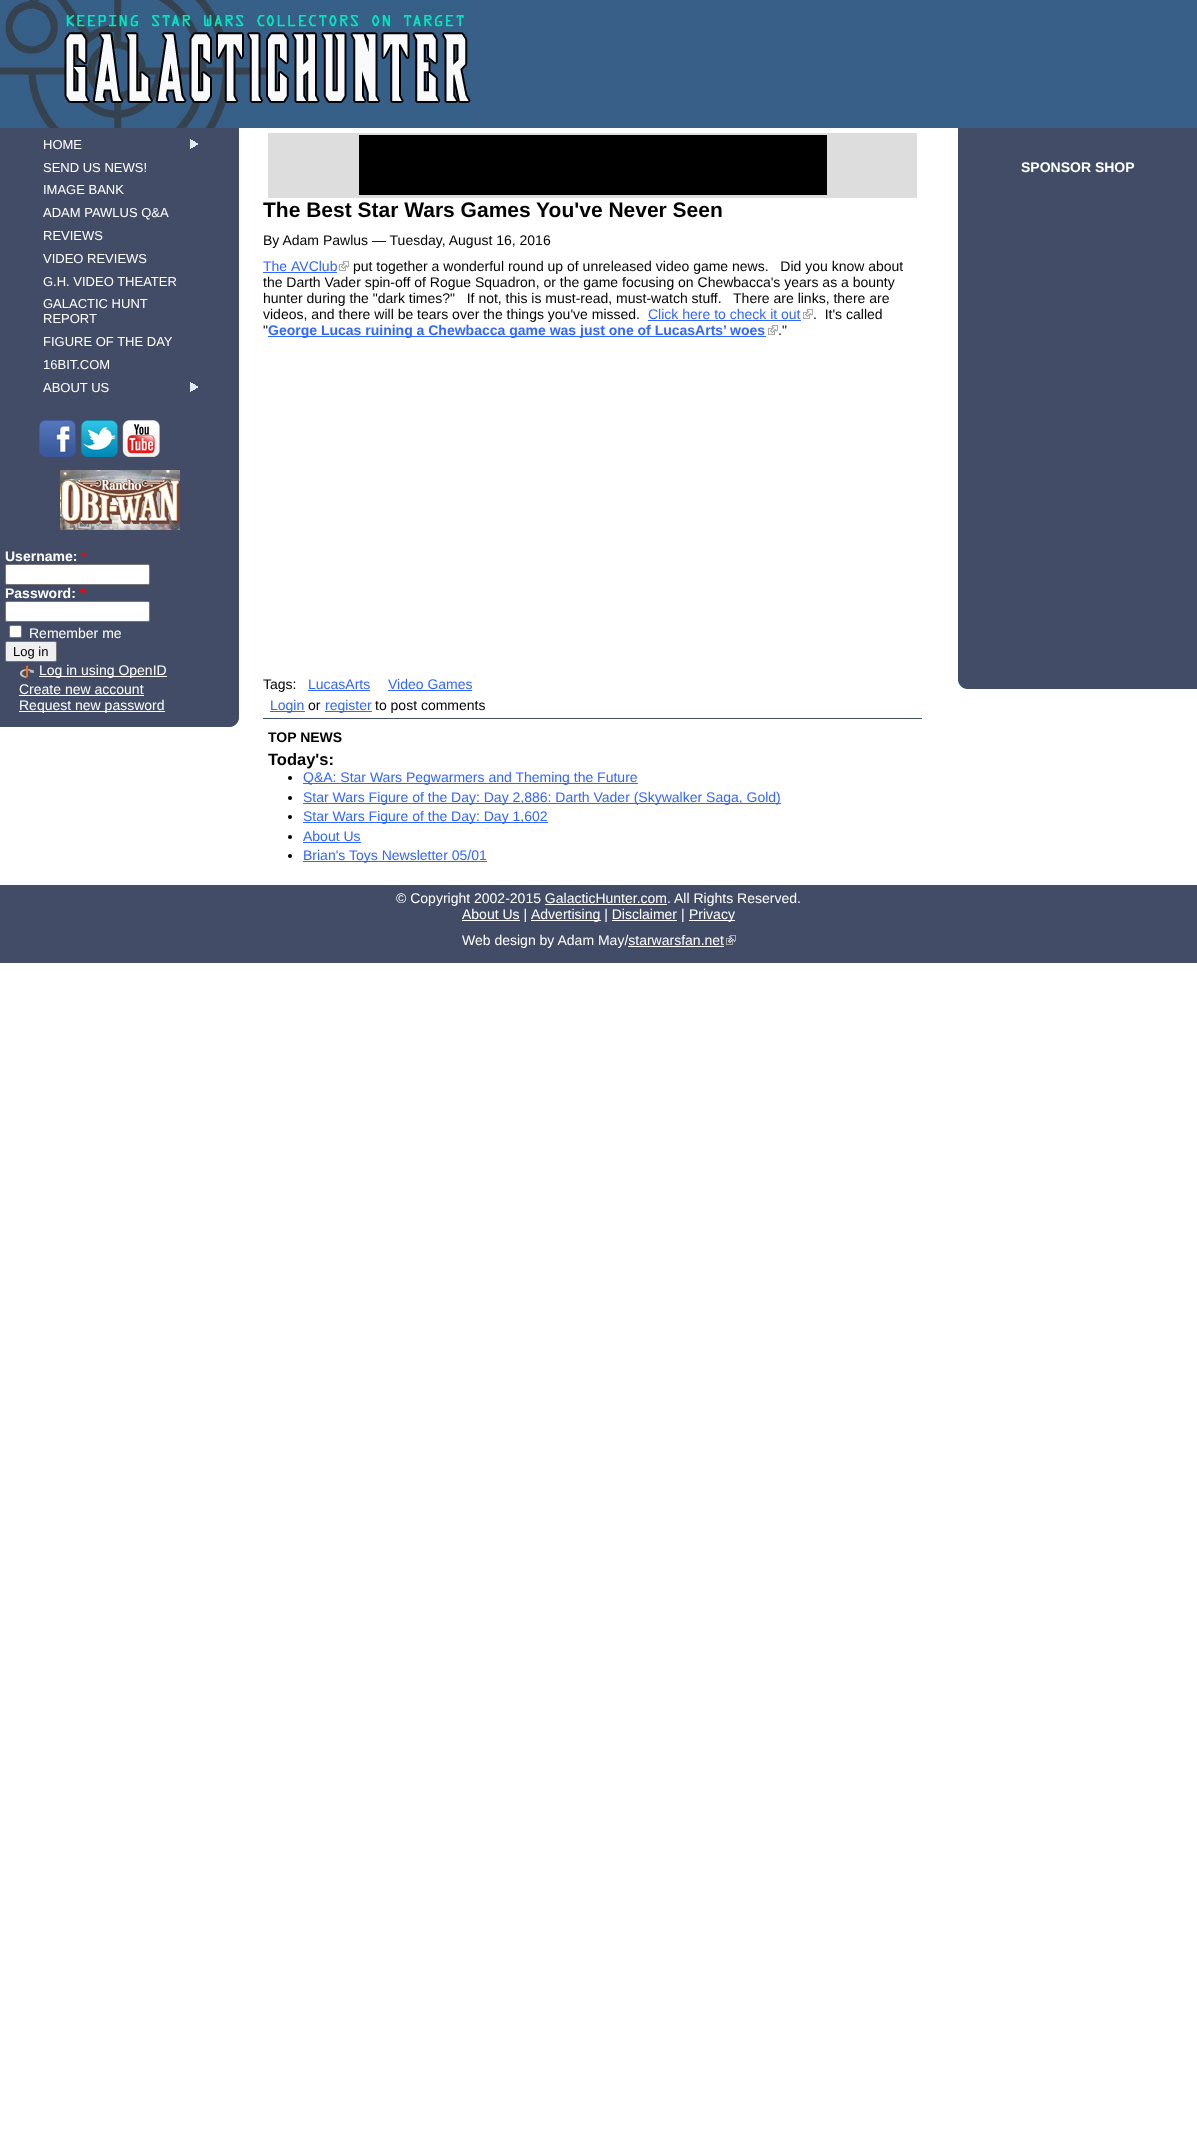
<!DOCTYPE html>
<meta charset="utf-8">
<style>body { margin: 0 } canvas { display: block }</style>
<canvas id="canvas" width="1197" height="2142"></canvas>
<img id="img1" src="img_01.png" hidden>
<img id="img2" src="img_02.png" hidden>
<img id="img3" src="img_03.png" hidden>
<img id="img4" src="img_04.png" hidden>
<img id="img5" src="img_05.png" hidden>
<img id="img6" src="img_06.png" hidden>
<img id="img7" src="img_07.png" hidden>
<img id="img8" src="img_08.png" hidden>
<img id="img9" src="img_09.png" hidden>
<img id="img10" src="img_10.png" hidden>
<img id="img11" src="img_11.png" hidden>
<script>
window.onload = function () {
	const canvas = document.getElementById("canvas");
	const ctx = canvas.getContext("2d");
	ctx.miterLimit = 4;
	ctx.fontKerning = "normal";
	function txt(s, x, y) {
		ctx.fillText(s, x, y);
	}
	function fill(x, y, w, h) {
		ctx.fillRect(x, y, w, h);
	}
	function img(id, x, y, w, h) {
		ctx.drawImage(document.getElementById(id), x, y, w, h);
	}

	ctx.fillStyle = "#FFFFFF";
	fill(0, 0, 1197, 2142);
	ctx.fillStyle = "#375F87";
	fill(472, 0, 725, 128);
	img("img1", 0, 0, 472, 128);
	ctx.fillStyle = "#424C66";
	fill(0, 128, 239, 599);
	img("img2", 190, 139, 8, 10);
	img("img2", 190, 382, 8, 10);
	img("img3", 39, 420, 37, 37);
	img("img4", 81, 420, 37, 37);
	img("img5", 122, 420, 38, 37);
	img("img6", 60, 470, 120, 60);
	ctx.fillStyle = "#FFFFFF";
	ctx.beginPath();
	ctx.roundRect(5.5, 564.5, 144, 20, 1.5);
	ctx.fill();
	ctx.strokeStyle = "#767676";
	ctx.stroke();
	ctx.beginPath();
	ctx.roundRect(5.5, 601.5, 144, 20, 1.5);
	ctx.fill();
	ctx.stroke();
	ctx.beginPath();
	ctx.roundRect(9.5, 625.5, 12, 12, 1.5);
	ctx.fill();
	ctx.stroke();
	ctx.fillStyle = "#EFEFEF";
	ctx.beginPath();
	ctx.roundRect(5.5, 641.5, 51, 20, 1.5);
	ctx.fill();
	ctx.stroke();
	img("img7", 20, 665, 14, 13);
	ctx.fillStyle = "#FFFFFF";
	fill(39, 676, 128, 1);
	fill(19, 695, 125, 1);
	fill(19, 711, 146, 1);
	img("img8", 230, 718, 9, 9);
	ctx.fillStyle = "#424C66";
	fill(958, 128, 239, 561);
	img("img9", 958, 680, 9, 9);
	ctx.fillStyle = "#DDDDDD";
	fill(268, 133, 649, 65);
	ctx.fillStyle = "#000000";
	fill(359, 135, 468, 60);
	ctx.fillStyle = "#424C66";
	fill(263, 718, 659, 1);
	ctx.fillStyle = "#3366FF";
	fill(263, 272, 74, 1);
	img("img10", 339, 261, 10, 10);
	fill(648, 320, 153, 1);
	img("img10", 803, 309, 10, 10);
	fill(268, 336, 498, 1);
	img("img10", 768, 325, 10, 10);
	fill(308, 690, 62, 1);
	fill(388, 690, 84, 1);
	fill(270, 711, 35, 1);
	fill(325, 711, 47, 1);
	ctx.fillStyle = "#000000";
	ctx.beginPath();
	ctx.arc(290, 778, 2, 0, Math.PI * 2);
	ctx.fill();
	ctx.fillStyle = "#3366FF";
	fill(303, 783, 335, 1);
	ctx.fillStyle = "#000000";
	ctx.beginPath();
	ctx.arc(290, 798, 2, 0, Math.PI * 2);
	ctx.fill();
	ctx.fillStyle = "#3366FF";
	fill(303, 803, 478, 1);
	ctx.fillStyle = "#000000";
	ctx.beginPath();
	ctx.arc(290, 817, 2, 0, Math.PI * 2);
	ctx.fill();
	ctx.fillStyle = "#3366FF";
	fill(303, 822, 245, 1);
	ctx.fillStyle = "#000000";
	ctx.beginPath();
	ctx.arc(290, 837, 2, 0, Math.PI * 2);
	ctx.fill();
	ctx.fillStyle = "#3366FF";
	fill(303, 842, 58, 1);
	ctx.fillStyle = "#000000";
	ctx.beginPath();
	ctx.arc(290, 856, 2, 0, Math.PI * 2);
	ctx.fill();
	ctx.fillStyle = "#3366FF";
	fill(303, 861, 184, 1);
	ctx.fillStyle = "#424C66";
	fill(0, 885, 1197, 78);
	ctx.fillStyle = "#FFFFFF";
	fill(545, 904, 122, 1);
	fill(462, 920, 58, 1);
	fill(531, 920, 70, 1);
	fill(689, 920, 46, 1);
	fill(612, 920, 65, 1);
	img("img11", 726, 935, 10, 10);
	fill(628, 946, 96, 1);
	ctx.font = "13px Liberation Sans";
	txt("HOME", 43, 149);
	txt("SEND US NEWS!", 43, 172);
	txt("IMAGE BANK", 43, 194);
	txt("ADAM PAWLUS Q&A", 43, 217);
	txt("REVIEWS", 43, 240);
	txt("VIDEO REVIEWS", 43, 263);
	txt("G.H. VIDEO THEATER", 43, 286);
	txt("GALACTIC HUNT", 43, 308);
	txt("REPORT", 43, 323);
	txt("FIGURE OF THE DAY", 43, 346);
	txt("16BIT.COM", 43, 369);
	txt("ABOUT US", 43, 392);
	ctx.font = "bold 14px Liberation Sans";
	txt("Username:", 5, 561);
	ctx.fillStyle = "#FF0000";
	txt("*", 81, 561);
	ctx.fillStyle = "#FFFFFF";
	txt("Password:", 5, 598);
	ctx.fillStyle = "#FF0000";
	txt("*", 80, 598);
	ctx.font = "14px Liberation Sans";
	ctx.fillStyle = "#FFFFFF";
	txt("Remember me", 29, 638);
	ctx.font = "13px Liberation Sans";
	ctx.fillStyle = "#000000";
	txt("Log in", 13, 656);
	ctx.font = "14px Liberation Sans";
	ctx.fillStyle = "#FFFFFF";
	txt("Log in using OpenID", 39, 675);
	txt("Create new account", 19, 694);
	txt("Request new password", 19, 710);
	ctx.font = "bold 14px Liberation Sans";
	txt("SPONSOR SHOP", 1021, 172);
	ctx.font = "bold 21px Liberation Sans";
	ctx.fillStyle = "#000000";
	txt("The Best Star Wars Games You've Never Seen", 263, 217);
	ctx.font = "14px Liberation Sans";
	txt("By Adam Pawlus — Tuesday, August 16, 2016", 263, 245);
	ctx.fillStyle = "#3366FF";
	txt("The", 263, 271);
	txt("AVClub", 291, 271);
	ctx.fillStyle = "#000000";
	txt("put together a wonderful round up of unreleased video game news.   Did you know about", 353, 271);
	txt("the Darth Vader spin-off of Rogue Squadron, or the game focusing on Chewbacca's years as a bounty", 263, 287);
	txt("hunter during the \"dark times?\"   If not, this is must-read, must-watch stuff.   There are links, there are", 263, 303);
	txt("videos, and there will be tears over the things you've missed.", 263, 319);
	ctx.fillStyle = "#3366FF";
	txt("Click here to check it out", 648, 319);
	ctx.fillStyle = "#000000";
	txt(".  It's called", 813, 319);
	txt("\"", 263, 335);
	ctx.font = "bold 14px Liberation Sans";
	ctx.fillStyle = "#3366FF";
	txt("George Lucas ruining a Chewbacca game was just one of LucasArts’", 268, 335);
	txt("woes", 730, 335);
	ctx.font = "14px Liberation Sans";
	ctx.fillStyle = "#000000";
	txt(".\"", 778, 335);
	txt("Tags:", 263, 689);
	ctx.fillStyle = "#3366FF";
	txt("LucasArts", 308, 689);
	txt("Video Games", 388, 689);
	txt("Login", 270, 710);
	ctx.fillStyle = "#000000";
	txt("or", 308, 710);
	ctx.fillStyle = "#3366FF";
	txt("register", 325, 710);
	ctx.fillStyle = "#000000";
	txt("to post comments", 375, 710);
	ctx.font = "bold 14px Liberation Sans";
	txt("TOP NEWS", 268, 742);
	ctx.font = "bold 16.5px Liberation Sans";
	txt("Today's:", 268, 765);
	ctx.font = "14px Liberation Sans";
	ctx.fillStyle = "#3366FF";
	txt("Q&A: Star Wars Pegwarmers and Theming the Future", 303, 782);
	txt("Star Wars Figure of the Day: Day 2,886: Darth Vader (Skywalker Saga, Gold)", 303, 802);
	txt("Star Wars Figure of the Day: Day 1,602", 303, 821);
	txt("About Us", 303, 841);
	txt("Brian's Toys Newsletter 05/01", 303, 860);
	ctx.fillStyle = "#FFFFFF";
	txt("© Copyright 2002-2015 GalacticHunter.com. All Rights Reserved.", 396, 903);
	txt("About Us |", 462, 919);
	txt("Advertising | Disclaimer |", 531, 919);
	txt("Privacy", 689, 919);
	txt("Web design by Adam May/starwarsfan.net", 462, 945);
};
</script>
